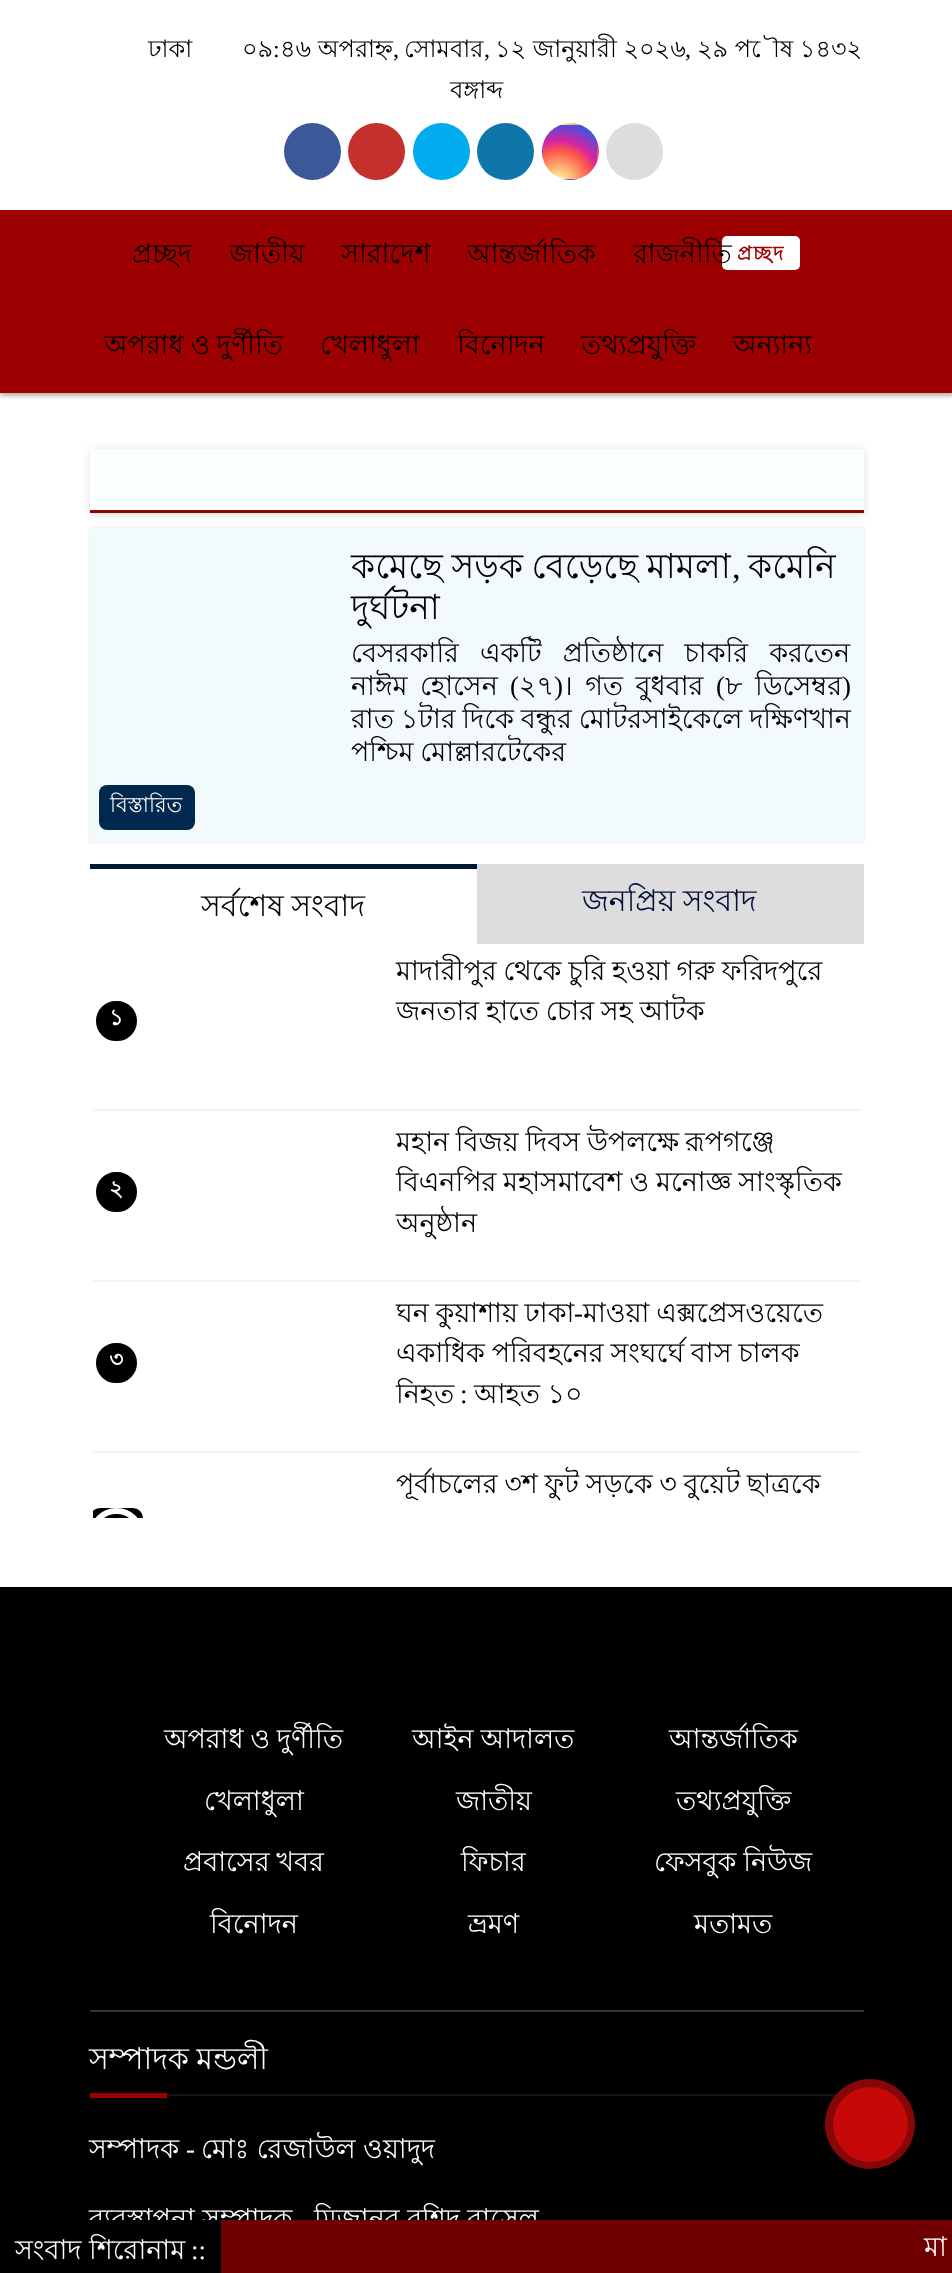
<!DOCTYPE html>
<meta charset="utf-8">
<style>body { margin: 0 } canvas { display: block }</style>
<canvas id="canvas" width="952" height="2273"></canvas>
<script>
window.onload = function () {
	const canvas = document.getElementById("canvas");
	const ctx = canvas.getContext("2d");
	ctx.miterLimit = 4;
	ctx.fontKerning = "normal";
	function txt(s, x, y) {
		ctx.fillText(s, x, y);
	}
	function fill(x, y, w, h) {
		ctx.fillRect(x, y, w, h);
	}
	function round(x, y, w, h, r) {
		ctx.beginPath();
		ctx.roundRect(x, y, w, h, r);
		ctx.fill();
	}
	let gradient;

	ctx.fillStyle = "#FFFFFF";
	fill(0, 0, 952, 2273);
	ctx.fillStyle = "#3B5998";
	ctx.beginPath();
	ctx.arc(312.5, 151.5, 28.5, 0, Math.PI * 2);
	ctx.fill();
	ctx.fillStyle = "#C4302B";
	ctx.beginPath();
	ctx.arc(376.5, 151.5, 28.5, 0, Math.PI * 2);
	ctx.fill();
	ctx.fillStyle = "#00ACEE";
	ctx.beginPath();
	ctx.arc(441.5, 151.5, 28.5, 0, Math.PI * 2);
	ctx.fill();
	ctx.fillStyle = "#0E76A8";
	ctx.beginPath();
	ctx.arc(505.5, 151.5, 28.5, 0, Math.PI * 2);
	ctx.fill();
	ctx.save();
	ctx.beginPath();
	ctx.roundRect(542, 123, 57, 57, 28.5);
	ctx.clip();
	gradient = ctx.createRadialGradient(559, 128, 0, 559, 128, 69);
	gradient.addColorStop(0, "#FDF497");
	gradient.addColorStop(0.05, "#FDF497");
	gradient.addColorStop(0.45, "#FD5949");
	gradient.addColorStop(0.6, "#D6249F");
	gradient.addColorStop(0.9, "#285AEB");
	ctx.fillStyle = gradient;
	fill(560, 123, 21, 2);
	gradient = ctx.createRadialGradient(505, 182, 0, 505, 182, 69);
	gradient.addColorStop(0, "#FDF497");
	gradient.addColorStop(0.05, "#FDF497");
	gradient.addColorStop(0.45, "#FD5949");
	gradient.addColorStop(0.6, "#D6249F");
	gradient.addColorStop(0.9, "#285AEB");
	ctx.fillStyle = gradient;
	fill(542, 144, 1, 15);
	gradient = ctx.createRadialGradient(559, 182, 0, 559, 182, 69);
	gradient.addColorStop(0, "#FDF497");
	gradient.addColorStop(0.05, "#FDF497");
	gradient.addColorStop(0.45, "#FD5949");
	gradient.addColorStop(0.6, "#D6249F");
	gradient.addColorStop(0.9, "#285AEB");
	ctx.fillStyle = gradient;
	fill(543, 125, 54, 54);
	gradient = ctx.createRadialGradient(613, 182, 0, 613, 182, 69);
	gradient.addColorStop(0, "#FDF497");
	gradient.addColorStop(0.05, "#FDF497");
	gradient.addColorStop(0.45, "#FD5949");
	gradient.addColorStop(0.6, "#D6249F");
	gradient.addColorStop(0.9, "#285AEB");
	ctx.fillStyle = gradient;
	fill(597, 141, 2, 21);
	gradient = ctx.createRadialGradient(559, 236, 0, 559, 236, 69);
	gradient.addColorStop(0, "#FDF497");
	gradient.addColorStop(0.05, "#FDF497");
	gradient.addColorStop(0.45, "#FD5949");
	gradient.addColorStop(0.6, "#D6249F");
	gradient.addColorStop(0.9, "#285AEB");
	ctx.fillStyle = gradient;
	fill(563, 179, 15, 1);
	ctx.restore();
	ctx.fillStyle = "#DDDDDD";
	ctx.beginPath();
	ctx.arc(634.5, 151.5, 28.5, 0, Math.PI * 2);
	ctx.fill();
	ctx.fillStyle = "rgba(0, 0, 0, 0.3)";
	ctx.filter = "blur(2px)";
	ctx.beginPath();
	ctx.rect(0, 213, 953, 183);
	ctx.fill();
	ctx.filter = "none";
	ctx.fillStyle = "#9D0000";
	fill(0, 210, 952, 183);
	ctx.fillStyle = "#FFFFFF";
	round(722, 236, 78, 34, 5);
	ctx.fillStyle = "#DDDDDD";
	ctx.filter = "blur(4px)";
	ctx.beginPath();
	ctx.rect(90, 450, 774, 65);
	ctx.fill();
	ctx.filter = "none";
	ctx.fillStyle = "#F8FFFE";
	fill(90, 449, 774, 61);
	ctx.fillStyle = "#8C0606";
	fill(90, 510, 774, 3);
	ctx.save();
	ctx.beginPath();
	ctx.moveTo(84, 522);
	ctx.lineTo(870, 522);
	ctx.lineTo(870, 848);
	ctx.lineTo(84, 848);
	ctx.closePath();
	ctx.moveTo(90, 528);
	ctx.lineTo(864, 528);
	ctx.lineTo(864, 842);
	ctx.lineTo(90, 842);
	ctx.closePath();
	ctx.clip("evenodd");
	ctx.fillStyle = "#DDDDDD";
	ctx.filter = "blur(1.5px)";
	ctx.beginPath();
	ctx.rect(90, 528, 774, 314);
	ctx.fill();
	ctx.filter = "none";
	ctx.restore();
	ctx.fillStyle = "rgba(226, 243, 247, 0.44)";
	fill(90, 528, 774, 314);
	ctx.fillStyle = "#01284F";
	round(99, 785, 96, 45, 8);
	ctx.fillStyle = "#01192F";
	fill(90, 864, 387, 5);
	ctx.fillStyle = "#DDDDDD";
	fill(477, 864, 387, 80);
	ctx.fillStyle = "#F4F4F4";
	fill(93, 1109, 768, 2);
	ctx.save();
	ctx.beginPath();
	ctx.rect(93, 951, 768, 158);
	ctx.clip();
	ctx.fillStyle = "#000000";
	ctx.beginPath();
	ctx.roundRect(93, 998, 47, 46, 23);
	ctx.fill();
	ctx.strokeStyle = "#FFFFFF";
	ctx.lineWidth = 6;
	ctx.stroke();
	ctx.restore();
	fill(93, 1280, 768, 2);
	ctx.save();
	ctx.beginPath();
	ctx.rect(93, 1122, 768, 158);
	ctx.clip();
	ctx.fillStyle = "#000000";
	ctx.beginPath();
	ctx.roundRect(93, 1169, 47, 46, 23);
	ctx.fill();
	ctx.strokeStyle = "#FFFFFF";
	ctx.lineWidth = 6;
	ctx.stroke();
	ctx.restore();
	fill(93, 1451, 768, 2);
	ctx.save();
	ctx.beginPath();
	ctx.rect(93, 1293, 768, 158);
	ctx.clip();
	ctx.fillStyle = "#000000";
	ctx.beginPath();
	ctx.roundRect(93, 1340, 47, 46, 23);
	ctx.fill();
	ctx.strokeStyle = "#FFFFFF";
	ctx.lineWidth = 6;
	ctx.stroke();
	ctx.restore();
	ctx.save();
	ctx.beginPath();
	ctx.rect(93, 1464, 768, 158);
	ctx.clip();
	ctx.fillStyle = "#000000";
	ctx.beginPath();
	ctx.roundRect(90, 1508, 53, 10, [26, 26, 0, 0]);
	ctx.fill();
	ctx.restore();
	ctx.save();
	ctx.beginPath();
	ctx.rect(93, 1464, 768, 54);
	ctx.clip();
	ctx.beginPath();
	ctx.roundRect(93, 1511, 47, 46, 23);
	ctx.strokeStyle = "#FFFFFF";
	ctx.lineWidth = 6;
	ctx.stroke();
	ctx.restore();
	ctx.fillStyle = "#000000";
	fill(0, 1587, 952, 633);
	ctx.fillStyle = "#333333";
	fill(90, 2010, 774, 2);
	ctx.fillStyle = "#171717";
	fill(167, 2094, 670, 2);
	ctx.fillStyle = "#9D0000";
	fill(90, 2093, 77, 5);
	ctx.fillStyle = "#860707";
	ctx.beginPath();
	ctx.arc(870, 2124, 45, 0, Math.PI * 2);
	ctx.fill();
	ctx.fillStyle = "#C60808";
	ctx.beginPath();
	ctx.arc(870.5, 2124.5, 37.5, 0, Math.PI * 2);
	ctx.fill();
	ctx.font = "24px Lohit Bengali";
	ctx.fillStyle = "#000000";
	txt("ঢাকা", 148, 57);
	txt("০৯", 242, 57);
	ctx.font = "24px Liberation Serif";
	txt(":", 273, 57);
	ctx.font = "24px Lohit Bengali";
	txt("৪৬ অপরাহ্ন", 280, 57);
	ctx.font = "24px Liberation Serif";
	txt(",", 393, 57);
	ctx.font = "24px Lohit Bengali";
	txt("সোমবার", 404, 57);
	ctx.font = "24px Liberation Serif";
	txt(",", 484, 57);
	ctx.font = "24px Lohit Bengali";
	txt("১২ জানুয়ারী ২০২৬", 495, 57);
	ctx.font = "24px Liberation Serif";
	txt(",", 685, 57);
	ctx.font = "24px Lohit Bengali";
	txt("২৯ পৌষ ১৪৩২", 697, 57);
	txt("বঙ্গাব্দ", 450, 98);
	ctx.font = "27px Lohit Bengali";
	txt("প্রচ্ছদ", 132, 263);
	txt("জাতীয়", 229, 263);
	txt("সারাদেশ", 341, 263);
	txt("আন্তর্জাতিক", 467, 263);
	txt("রাজনীতি", 633, 263);
	ctx.wordSpacing = "-0.75px";
	txt("অপরাধ ও দুর্ণীতি", 104, 354);
	ctx.wordSpacing = "0px";
	txt("খেলাধুলা", 320, 354);
	txt("বিনোদন", 457, 354);
	txt("তথ্যপ্রযুক্তি", 581, 354);
	txt("অন্যান্য", 733, 354);
	ctx.letterSpacing = "1.5px";
	ctx.font = "bold 19.5px Lohit Bengali";
	ctx.fillStyle = "#9D0000";
	txt("প্রচ্ছদ", 737, 260);
	ctx.letterSpacing = "0px";
	ctx.wordSpacing = "-1px";
	ctx.font = "34.5px Lohit Bengali";
	ctx.fillStyle = "#000000";
	txt("কমেছে সড়ক বেড়েছে মামলা", 351, 578);
	ctx.wordSpacing = "0px";
	ctx.font = "34.5px Liberation Serif";
	txt(",", 732, 578);
	ctx.font = "34.5px Lohit Bengali";
	txt("কমেনি", 748, 578);
	txt("দুর্ঘটনা", 351, 619);
	ctx.wordSpacing = "13.5px";
	ctx.font = "27px Lohit Bengali";
	txt("বেসরকারি একটি প্রতিষ্ঠানে চাকরি করতেন", 351, 662);
	ctx.wordSpacing = "5px";
	txt("নাঈম হোসেন", 351, 695);
	ctx.wordSpacing = "0px";
	ctx.font = "27px Liberation Serif";
	txt("(", 510, 695);
	ctx.font = "27px Lohit Bengali";
	txt("২৭", 519, 695);
	ctx.font = "27px Liberation Serif";
	txt(")", 554, 695);
	ctx.wordSpacing = "5px";
	ctx.font = "27px Lohit Bengali";
	txt("। গত বুধবার", 563, 695);
	ctx.wordSpacing = "0px";
	ctx.font = "27px Liberation Serif";
	txt("(", 716, 695);
	ctx.wordSpacing = "5px";
	ctx.font = "27px Lohit Bengali";
	txt("৮ ডিসেম্বর", 725, 695);
	ctx.wordSpacing = "0px";
	ctx.font = "27px Liberation Serif";
	txt(")", 842, 695);
	ctx.wordSpacing = "-0.75px";
	ctx.font = "27px Lohit Bengali";
	txt("রাত ১টার দিকে বন্ধুর মোটরসাইকেলে দক্ষিণখান", 351, 728);
	txt("পশ্চিম মোল্লারটেকের", 351, 761);
	ctx.wordSpacing = "0px";
	ctx.font = "21px Lohit Bengali";
	ctx.fillStyle = "#FFFFFF";
	txt("বিস্তারিত", 110, 812);
	ctx.wordSpacing = "-1px";
	ctx.font = "30px Lohit Bengali";
	ctx.fillStyle = "#000000";
	txt("সর্বশেষ সংবাদ", 201, 916);
	ctx.fillStyle = "#000D39";
	txt("জনপ্রিয় সংবাদ", 582, 911);
	ctx.wordSpacing = "0px";
	ctx.font = "bold 22px Lohit Bengali";
	ctx.fillStyle = "#FFFFFF";
	txt("১", 109, 1025);
	ctx.wordSpacing = "-0.75px";
	ctx.font = "27px Lohit Bengali";
	ctx.fillStyle = "#000000";
	txt("মাদারীপুর থেকে চুরি হওয়া গরু ফরিদপুরে", 396, 980);
	txt("জনতার হাতে চোর সহ আটক", 396, 1020);
	ctx.wordSpacing = "0px";
	ctx.font = "bold 22px Lohit Bengali";
	ctx.fillStyle = "#FFFFFF";
	txt("২", 109, 1196);
	ctx.wordSpacing = "-0.75px";
	ctx.font = "27px Lohit Bengali";
	ctx.fillStyle = "#000000";
	txt("মহান বিজয় দিবস উপলক্ষে", 396, 1151);
	ctx.wordSpacing = "0px";
	txt("রূপগঞ্জে", 685, 1151);
	ctx.wordSpacing = "-0.75px";
	txt("বিএনপির মহাসমাবেশ ও মনোজ্ঞ সাংস্কৃতিক", 396, 1191);
	ctx.wordSpacing = "0px";
	txt("অনুষ্ঠান", 396, 1232);
	ctx.font = "bold 22px Lohit Bengali";
	ctx.fillStyle = "#FFFFFF";
	txt("৩", 109, 1367);
	ctx.wordSpacing = "-0.75px";
	ctx.font = "27px Lohit Bengali";
	ctx.fillStyle = "#000000";
	txt("ঘন কুয়াশায় ঢাকা", 396, 1322);
	ctx.wordSpacing = "0px";
	ctx.font = "27px Liberation Serif";
	txt("-", 574, 1322);
	ctx.wordSpacing = "-0.75px";
	ctx.font = "27px Lohit Bengali";
	txt("মাওয়া এক্সপ্রেসওয়েতে", 583, 1322);
	txt("একাধিক পরিবহনের সংঘর্ঘে বাস চালক", 396, 1362);
	ctx.wordSpacing = "0px";
	txt("নিহত", 396, 1403);
	ctx.font = "27px Liberation Serif";
	txt(":", 460, 1403);
	ctx.font = "27px Lohit Bengali";
	txt("আহত ১০", 474, 1403);
	ctx.wordSpacing = "-0.75px";
	txt("পূর্বাচলের ৩শ ফুট সড়কে ৩ বুয়েট ছাত্রকে", 396, 1493);
	ctx.fillStyle = "#FFFFFF";
	txt("অপরাধ ও দুর্ণীতি", 164, 1748);
	txt("আইন আদালত", 412, 1748);
	ctx.wordSpacing = "0px";
	txt("আন্তর্জাতিক", 669, 1748);
	txt("খেলাধুলা", 204, 1810);
	txt("জাতীয়", 456, 1810);
	txt("তথ্যপ্রযুক্তি", 676, 1810);
	ctx.wordSpacing = "-0.75px";
	txt("প্রবাসের খবর", 183, 1871);
	ctx.wordSpacing = "0px";
	txt("ফিচার", 461, 1871);
	ctx.wordSpacing = "-0.75px";
	txt("ফেসবুক নিউজ", 654, 1871);
	ctx.wordSpacing = "0px";
	txt("বিনোদন", 210, 1933);
	txt("ভ্রমণ", 468, 1933);
	txt("মতামত", 694, 1933);
	ctx.wordSpacing = "-1px";
	ctx.font = "30px Lohit Bengali";
	txt("সম্পাদক মন্ডলী", 89, 2069);
	ctx.wordSpacing = "0px";
	ctx.font = "27px Lohit Bengali";
	txt("সম্পাদক", 89, 2158);
	ctx.font = "27px Liberation Serif";
	txt("-", 186, 2158);
	ctx.font = "27px Lohit Bengali";
	txt("মোঃ রেজাউল ওয়াদুদ", 201, 2158);
	txt("ব্যবস্থাপনা সম্পাদক", 89, 2228);
	txt("মিজানুর রশিদ রাসেল", 314, 2228);
	ctx.fillStyle = "#6F0000";
	fill(221, 2220, 731, 53);
	ctx.fillStyle = "#000000";
	fill(0, 2220, 221, 53);
	ctx.fillStyle = "#FFFFFF";
	txt("সংবাদ শিরোনাম", 15, 2259);
	ctx.font = "27px Liberation Serif";
	txt("::", 191, 2259);
	ctx.wordSpacing = "-0.75px";
	ctx.font = "27px Lohit Bengali";
	txt("মা", 924, 2256);
};
</script>
